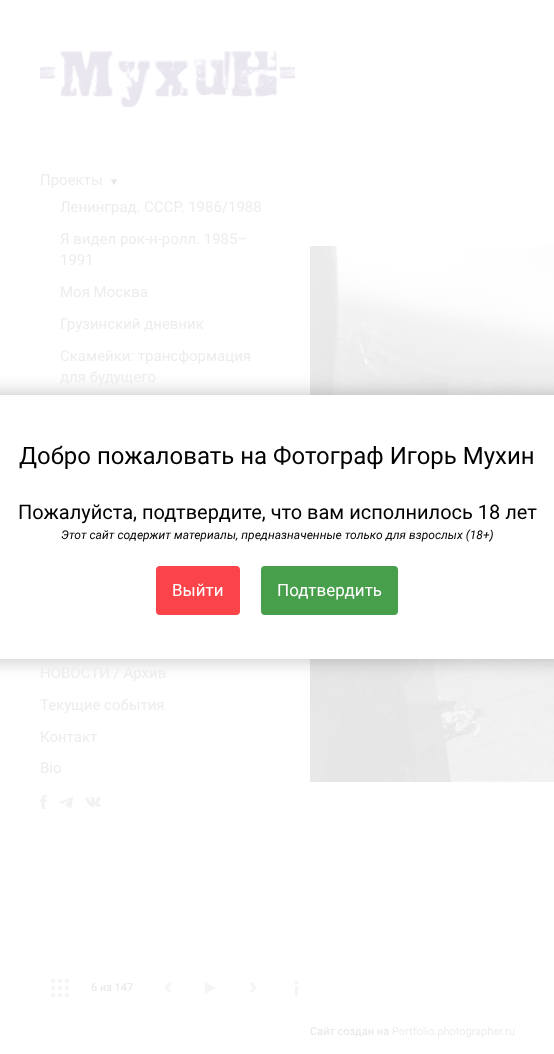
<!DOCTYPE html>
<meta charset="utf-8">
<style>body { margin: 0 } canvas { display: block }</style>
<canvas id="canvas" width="554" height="1054"></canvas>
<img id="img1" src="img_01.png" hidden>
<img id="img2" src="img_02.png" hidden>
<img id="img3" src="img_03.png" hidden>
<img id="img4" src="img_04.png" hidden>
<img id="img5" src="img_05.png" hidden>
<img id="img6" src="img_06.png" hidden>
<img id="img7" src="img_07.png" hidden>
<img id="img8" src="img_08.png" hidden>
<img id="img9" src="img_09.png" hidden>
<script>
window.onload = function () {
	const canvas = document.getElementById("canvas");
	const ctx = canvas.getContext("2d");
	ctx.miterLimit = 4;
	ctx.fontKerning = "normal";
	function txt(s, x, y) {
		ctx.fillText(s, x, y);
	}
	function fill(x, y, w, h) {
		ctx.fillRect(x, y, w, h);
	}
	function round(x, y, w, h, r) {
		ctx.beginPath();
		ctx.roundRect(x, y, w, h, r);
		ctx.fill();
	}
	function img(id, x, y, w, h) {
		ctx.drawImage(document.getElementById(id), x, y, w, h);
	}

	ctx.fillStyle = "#FFFFFF";
	fill(0, 0, 554, 1054);
	img("img1", 40, 51, 255, 56);
	img("img2", 40, 795, 7, 14);
	img("img3", 59, 797, 14, 11);
	img("img4", 85, 797, 16, 10);
	img("img5", 51, 979, 18, 18);
	img("img6", 164, 982, 8, 12);
	ctx.fillStyle = "#F5F5F5";
	ctx.beginPath();
	ctx.moveTo(216, 988);
	ctx.lineTo(205, 994);
	ctx.lineTo(205, 982);
	ctx.closePath();
	ctx.fill();
	img("img7", 249, 982, 8, 12);
	img("img8", 295, 981, 3, 15);
	img("img9", 310, 246, 244, 536);
	ctx.fillStyle = "rgba(0, 0, 0, 0.25)";
	ctx.filter = "blur(10px)";
	ctx.beginPath();
	ctx.rect(-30, 395, 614, 264);
	ctx.fill();
	ctx.filter = "none";
	ctx.fillStyle = "#FFFFFF";
	fill(0, 395, 554, 264);
	ctx.fillStyle = "#FB444A";
	round(156, 566, 84, 49, 4);
	ctx.fillStyle = "#479F4B";
	round(261, 566, 137, 49, 4);
	ctx.font = "15px Roboto";
	ctx.fillStyle = "#EDEDED";
	txt("Проекты", 40, 185);
	ctx.font = "10px Liberation Serif";
	ctx.fillStyle = "#E6E6E6";
	txt("▼", 109, 185);
	ctx.font = "15px Roboto";
	ctx.fillStyle = "#EDEDED";
	txt("Ленинград. СССР. 1986/1988", 60, 212);
	txt("Я видел pок-н-ролл. 1985–", 60, 244);
	txt("1991", 60, 265);
	txt("Моя Мoсква", 60, 297);
	txt("Грузинский дневник", 60, 329);
	txt("Скамейки: трансформация", 60, 361);
	txt("для будущего", 60, 382);
	txt("НОВОСТИ / Архив", 40, 678);
	txt("Текущие события", 40, 710);
	txt("Контакт", 40, 742);
	txt("Bio", 40, 773);
	ctx.font = "11px Roboto";
	ctx.fillStyle = "#E6E6E6";
	txt("6 из 147", 91, 991);
	ctx.font = "24px Roboto";
	ctx.fillStyle = "#000000";
	txt("Добро пожаловать на Фотограф Игорь Мухин", 19, 464);
	ctx.font = "20px Roboto";
	txt("Пожалуйста, подтвердите, что вам исполнилось 18 лет", 18, 519);
	ctx.font = "italic 12px Roboto";
	txt("Этот сайт содержит материалы, предназначенные только для взрослых (18+)", 61, 539);
	ctx.font = "17px Roboto";
	ctx.fillStyle = "#FFFFFF";
	txt("Выйти", 172, 596);
	txt("Подтвердить", 277, 596);
	ctx.font = "11px Roboto";
	ctx.fillStyle = "#E6E6E6";
	txt("Сайт создан на", 310, 1035);
	ctx.fillStyle = "#EDEDED";
	txt("Portfolio.photographer.ru", 392, 1035);
};
</script>
